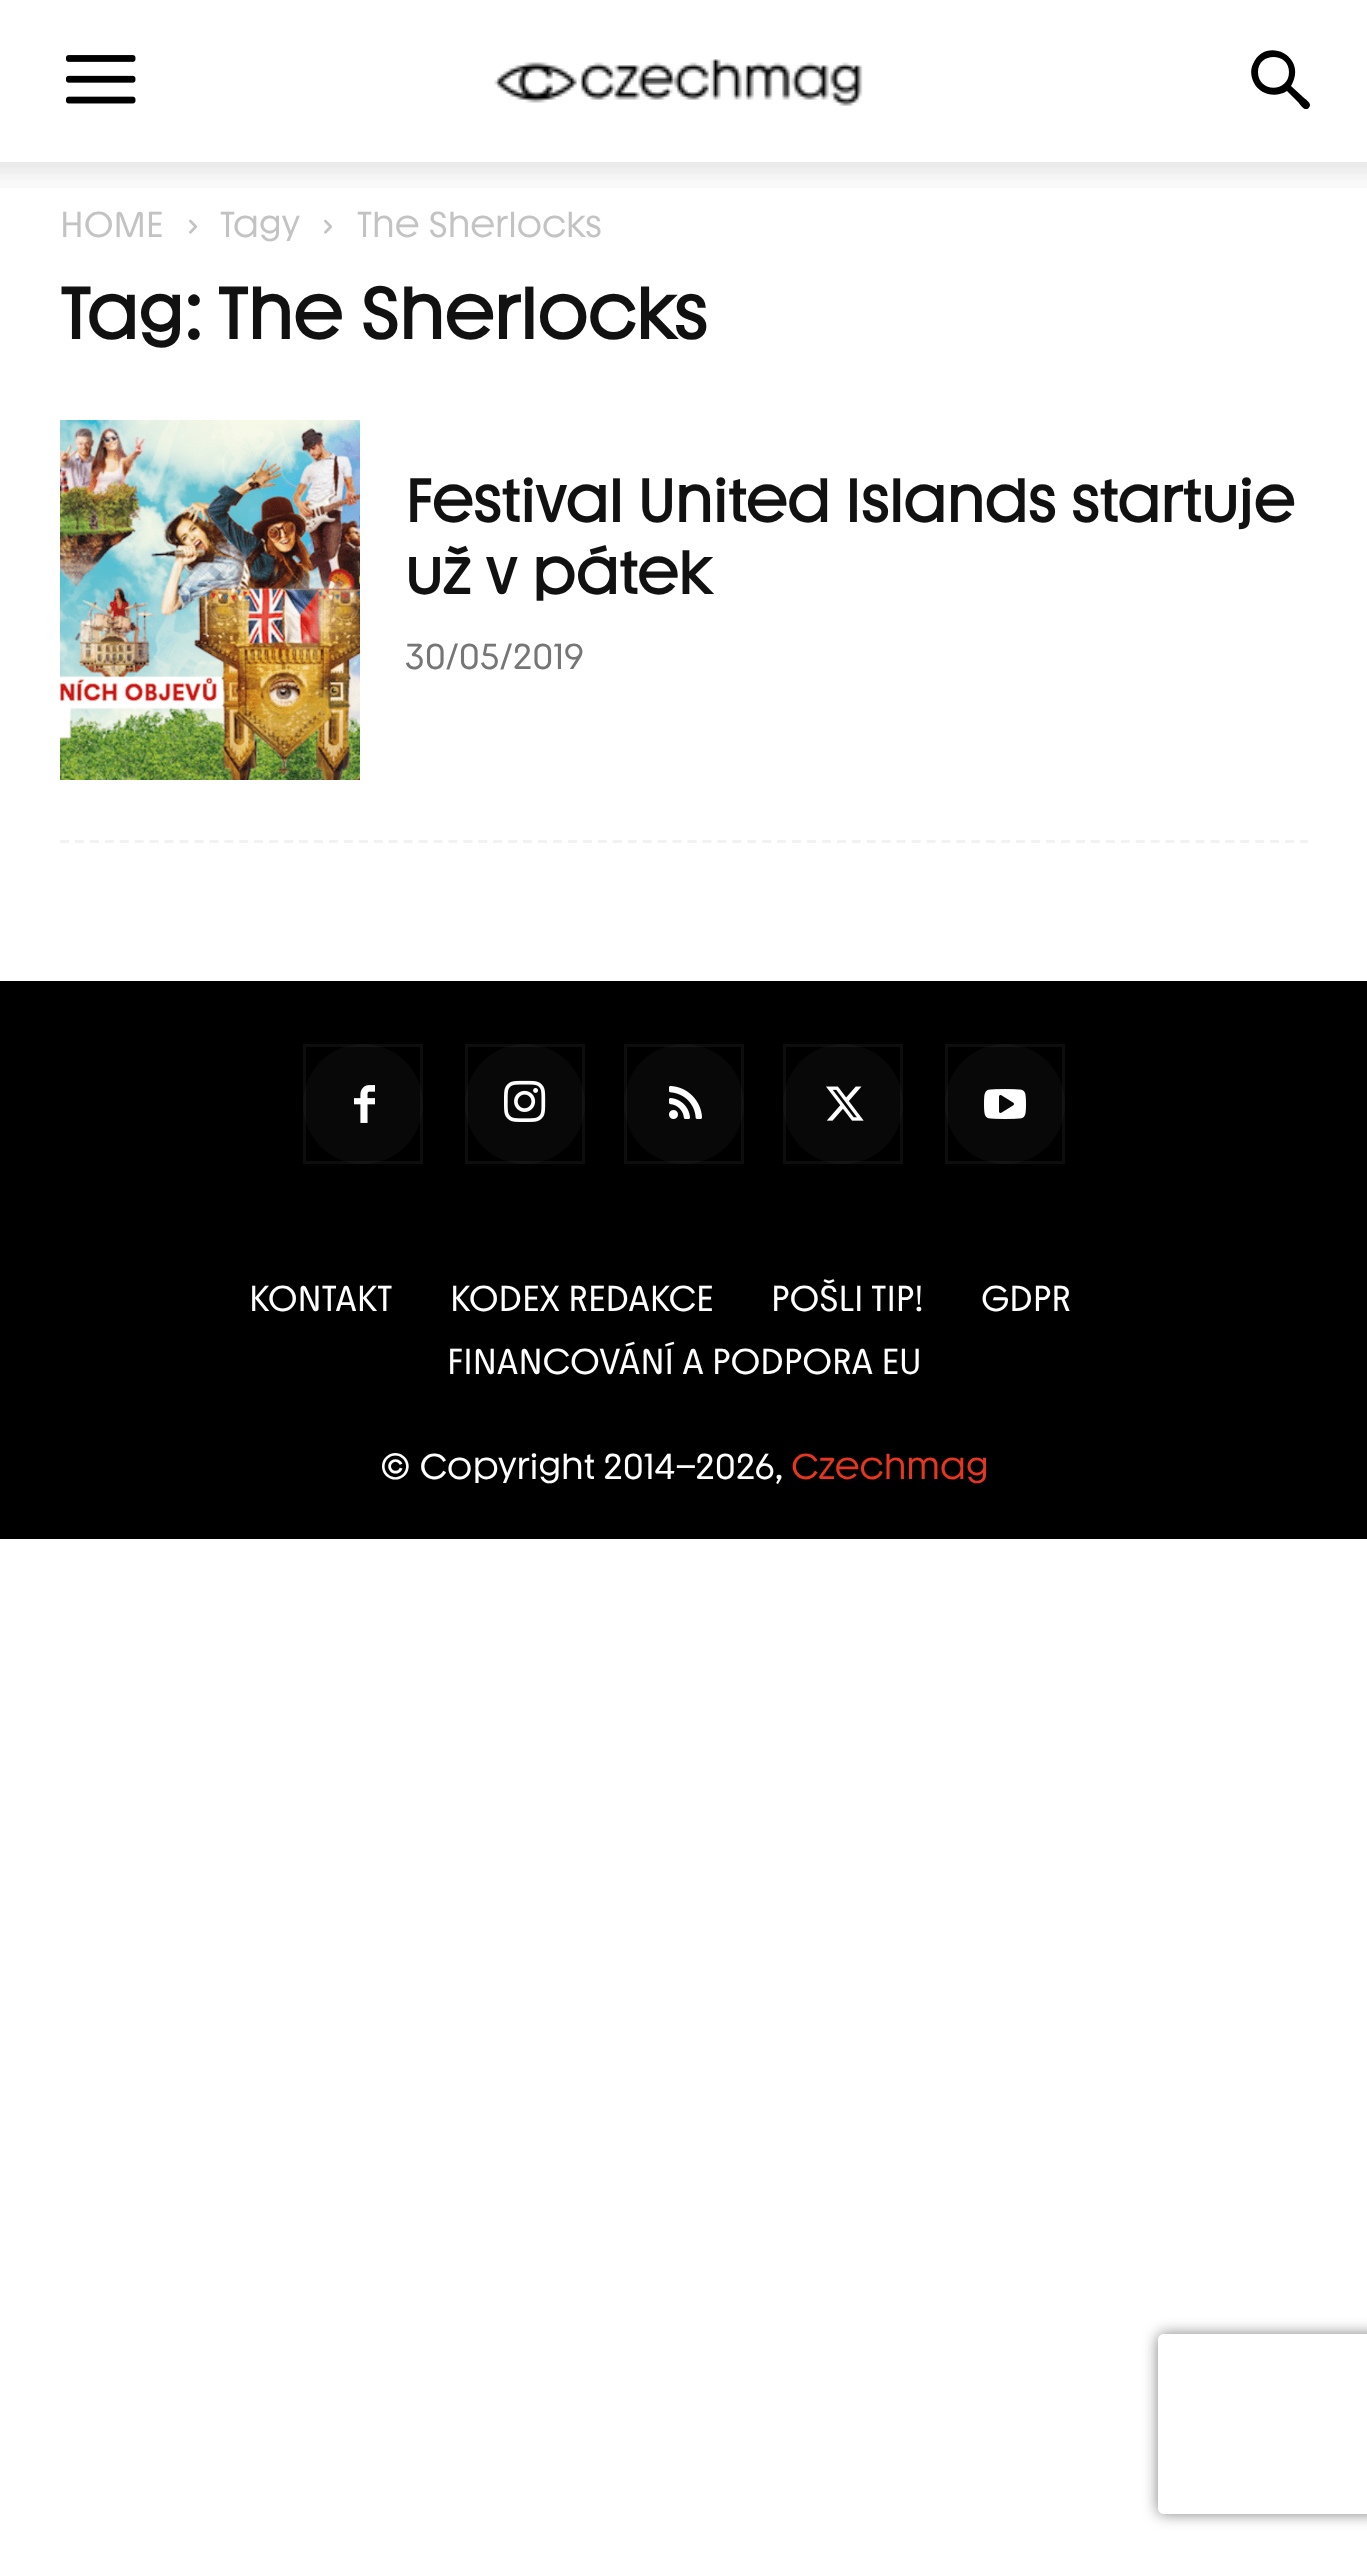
<!DOCTYPE html>
<meta charset="utf-8">
<style>body { margin: 0 } canvas { display: block }</style>
<canvas id="canvas" width="1367" height="2556"></canvas>
<img id="img1" src="img_01.png" hidden>
<img id="img2" src="img_02.png" hidden>
<img id="img3" src="img_03.png" hidden>
<img id="img4" src="img_04.png" hidden>
<img id="img5" src="img_05.png" hidden>
<img id="img6" src="img_06.png" hidden>
<img id="img7" src="img_07.png" hidden>
<img id="img8" src="img_08.png" hidden>
<img id="img9" src="img_09.png" hidden>
<img id="img10" src="img_10.png" hidden>
<script>
window.onload = function () {
	const canvas = document.getElementById("canvas");
	const ctx = canvas.getContext("2d");
	ctx.miterLimit = 4;
	ctx.fontKerning = "normal";
	function txt(s, x, y) {
		ctx.fillText(s, x, y);
	}
	function fill(x, y, w, h) {
		ctx.fillRect(x, y, w, h);
	}
	function img(id, x, y, w, h) {
		ctx.drawImage(document.getElementById(id), x, y, w, h);
	}

	ctx.fillStyle = "#FFFFFF";
	fill(0, 0, 1367, 2556);
	img("img1", 66, 55, 70, 49);
	img("img2", 494, 59, 369, 47);
	ctx.fillStyle = "#000000";
	ctx.beginPath();
	ctx.moveTo(1289, 72);
	ctx.bezierCurveTo(1289, 93, 1258, 93, 1258, 72);
	ctx.bezierCurveTo(1258, 52, 1289, 52, 1289, 72);
	ctx.closePath();
	ctx.moveTo(1310, 105);
	ctx.bezierCurveTo(1310, 102, 1305, 99, 1303, 97);
	ctx.lineTo(1291, 86);
	ctx.bezierCurveTo(1309, 56, 1265, 35, 1253, 64);
	ctx.bezierCurveTo(1250, 70, 1251, 77, 1254, 83);
	ctx.bezierCurveTo(1260, 95, 1276, 98, 1287, 91);
	ctx.lineTo(1298, 102);
	ctx.bezierCurveTo(1300, 104, 1303, 110, 1307, 109);
	ctx.bezierCurveTo(1308, 109, 1310, 107, 1310, 105);
	ctx.closePath();
	ctx.fill();
	img("img3", 0, 162, 1367, 26);
	img("img4", 189, 219, 9, 15);
	img("img4", 324, 219, 9, 15);
	ctx.beginPath();
	ctx.moveTo(60, 841.5);
	ctx.lineTo(1308, 841.5);
	ctx.strokeStyle = "#F2F2F2";
	ctx.lineWidth = 3;
	ctx.setLineDash([9, 5.94]);
	ctx.stroke();
	img("img5", 60, 420, 300, 360);
	fill(0, 981, 1367, 558);
	ctx.fillStyle = "#080808";
	ctx.beginPath();
	ctx.arc(363, 1104, 60, 0, Math.PI * 2);
	ctx.fill();
	img("img6", 354, 1085, 21, 38);
	ctx.strokeStyle = "rgba(255, 255, 255, 0.05)";
	ctx.setLineDash([]);
	ctx.strokeRect(304.5, 1045.5, 117, 117);
	ctx.beginPath();
	ctx.arc(525, 1104, 60, 0, Math.PI * 2);
	ctx.fill();
	img("img7", 504, 1080, 42, 42);
	ctx.strokeRect(466.5, 1045.5, 117, 117);
	ctx.beginPath();
	ctx.arc(684, 1104, 60, 0, Math.PI * 2);
	ctx.fill();
	img("img8", 669, 1086, 33, 33);
	ctx.strokeRect(625.5, 1045.5, 117, 117);
	ctx.beginPath();
	ctx.arc(843, 1104, 60, 0, Math.PI * 2);
	ctx.fill();
	img("img9", 826, 1086, 38, 35);
	ctx.strokeRect(784.5, 1045.5, 117, 117);
	ctx.beginPath();
	ctx.arc(1005, 1104, 60, 0, Math.PI * 2);
	ctx.fill();
	img("img10", 984, 1089, 42, 30);
	ctx.strokeRect(946.5, 1045.5, 117, 117);
	ctx.save();
	ctx.beginPath();
	ctx.moveTo(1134, 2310);
	ctx.lineTo(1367, 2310);
	ctx.lineTo(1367, 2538);
	ctx.lineTo(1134, 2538);
	ctx.closePath();
	ctx.moveTo(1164, 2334);
	ctx.lineTo(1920, 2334);
	ctx.bezierCurveTo(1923.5, 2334, 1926, 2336.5, 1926, 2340);
	ctx.lineTo(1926, 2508);
	ctx.bezierCurveTo(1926, 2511.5, 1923.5, 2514, 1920, 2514);
	ctx.lineTo(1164, 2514);
	ctx.bezierCurveTo(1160.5, 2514, 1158, 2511.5, 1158, 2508);
	ctx.lineTo(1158, 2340);
	ctx.bezierCurveTo(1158, 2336.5, 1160.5, 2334, 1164, 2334);
	ctx.closePath();
	ctx.clip("evenodd");
	ctx.fillStyle = "#808080";
	ctx.filter = "blur(7.5px)";
	ctx.beginPath();
	ctx.roundRect(1158, 2334, 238, 180, 6);
	ctx.fill();
	ctx.filter = "none";
	ctx.restore();
	ctx.font = "36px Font";
	ctx.fillStyle = "#C3C3C3";
	txt("HOME", 60, 237);
	txt("Tagy", 220, 237);
	txt("The Sherlocks", 357, 237);
	ctx.font = "bold 72px Font";
	ctx.fillStyle = "#111111";
	txt("Tag: The Sherlocks", 60, 339);
	ctx.font = "bold 60px Font";
	txt("Festival United Islands startuje", 405, 522);
	txt("už v pátek", 405, 594);
	ctx.font = "36px Font";
	ctx.fillStyle = "#767676";
	txt("30/05/2019", 405, 669);
	ctx.fillStyle = "#FFFFFF";
	txt("KONTAKT", 249, 1311);
	txt("KODEX REDAKCE", 450, 1311);
	txt("POŠLI TIP!", 771, 1311);
	txt("GDPR", 981, 1311);
	txt("FINANCOVÁNÍ A PODPORA EU", 447, 1374);
	txt("© Copyright 2014–2026,", 380, 1479);
	ctx.fillStyle = "#E53622";
	txt("Czechmag", 791, 1479);
};
</script>
